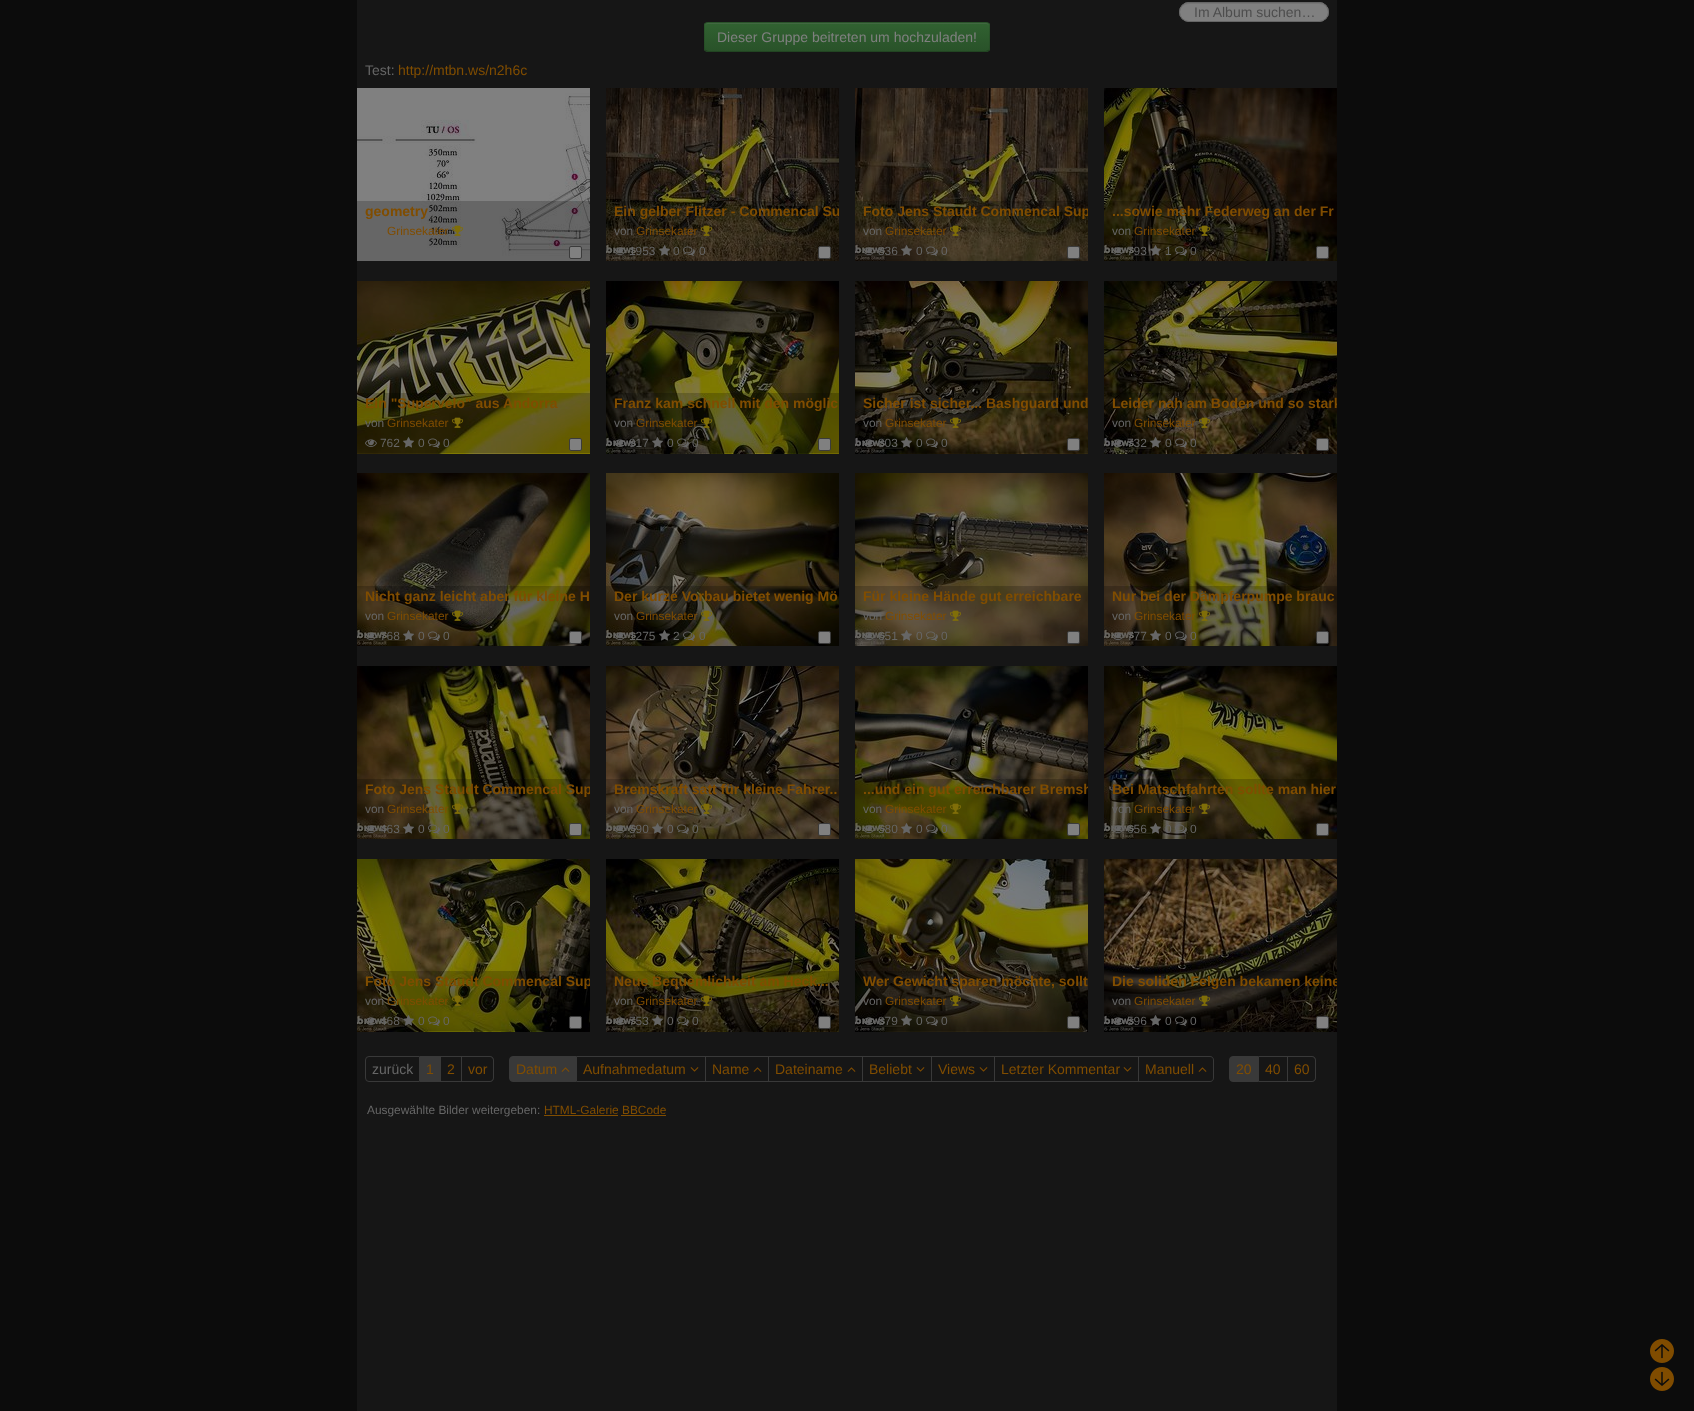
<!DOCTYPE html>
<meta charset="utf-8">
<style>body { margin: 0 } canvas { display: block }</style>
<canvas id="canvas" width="1694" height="1411"></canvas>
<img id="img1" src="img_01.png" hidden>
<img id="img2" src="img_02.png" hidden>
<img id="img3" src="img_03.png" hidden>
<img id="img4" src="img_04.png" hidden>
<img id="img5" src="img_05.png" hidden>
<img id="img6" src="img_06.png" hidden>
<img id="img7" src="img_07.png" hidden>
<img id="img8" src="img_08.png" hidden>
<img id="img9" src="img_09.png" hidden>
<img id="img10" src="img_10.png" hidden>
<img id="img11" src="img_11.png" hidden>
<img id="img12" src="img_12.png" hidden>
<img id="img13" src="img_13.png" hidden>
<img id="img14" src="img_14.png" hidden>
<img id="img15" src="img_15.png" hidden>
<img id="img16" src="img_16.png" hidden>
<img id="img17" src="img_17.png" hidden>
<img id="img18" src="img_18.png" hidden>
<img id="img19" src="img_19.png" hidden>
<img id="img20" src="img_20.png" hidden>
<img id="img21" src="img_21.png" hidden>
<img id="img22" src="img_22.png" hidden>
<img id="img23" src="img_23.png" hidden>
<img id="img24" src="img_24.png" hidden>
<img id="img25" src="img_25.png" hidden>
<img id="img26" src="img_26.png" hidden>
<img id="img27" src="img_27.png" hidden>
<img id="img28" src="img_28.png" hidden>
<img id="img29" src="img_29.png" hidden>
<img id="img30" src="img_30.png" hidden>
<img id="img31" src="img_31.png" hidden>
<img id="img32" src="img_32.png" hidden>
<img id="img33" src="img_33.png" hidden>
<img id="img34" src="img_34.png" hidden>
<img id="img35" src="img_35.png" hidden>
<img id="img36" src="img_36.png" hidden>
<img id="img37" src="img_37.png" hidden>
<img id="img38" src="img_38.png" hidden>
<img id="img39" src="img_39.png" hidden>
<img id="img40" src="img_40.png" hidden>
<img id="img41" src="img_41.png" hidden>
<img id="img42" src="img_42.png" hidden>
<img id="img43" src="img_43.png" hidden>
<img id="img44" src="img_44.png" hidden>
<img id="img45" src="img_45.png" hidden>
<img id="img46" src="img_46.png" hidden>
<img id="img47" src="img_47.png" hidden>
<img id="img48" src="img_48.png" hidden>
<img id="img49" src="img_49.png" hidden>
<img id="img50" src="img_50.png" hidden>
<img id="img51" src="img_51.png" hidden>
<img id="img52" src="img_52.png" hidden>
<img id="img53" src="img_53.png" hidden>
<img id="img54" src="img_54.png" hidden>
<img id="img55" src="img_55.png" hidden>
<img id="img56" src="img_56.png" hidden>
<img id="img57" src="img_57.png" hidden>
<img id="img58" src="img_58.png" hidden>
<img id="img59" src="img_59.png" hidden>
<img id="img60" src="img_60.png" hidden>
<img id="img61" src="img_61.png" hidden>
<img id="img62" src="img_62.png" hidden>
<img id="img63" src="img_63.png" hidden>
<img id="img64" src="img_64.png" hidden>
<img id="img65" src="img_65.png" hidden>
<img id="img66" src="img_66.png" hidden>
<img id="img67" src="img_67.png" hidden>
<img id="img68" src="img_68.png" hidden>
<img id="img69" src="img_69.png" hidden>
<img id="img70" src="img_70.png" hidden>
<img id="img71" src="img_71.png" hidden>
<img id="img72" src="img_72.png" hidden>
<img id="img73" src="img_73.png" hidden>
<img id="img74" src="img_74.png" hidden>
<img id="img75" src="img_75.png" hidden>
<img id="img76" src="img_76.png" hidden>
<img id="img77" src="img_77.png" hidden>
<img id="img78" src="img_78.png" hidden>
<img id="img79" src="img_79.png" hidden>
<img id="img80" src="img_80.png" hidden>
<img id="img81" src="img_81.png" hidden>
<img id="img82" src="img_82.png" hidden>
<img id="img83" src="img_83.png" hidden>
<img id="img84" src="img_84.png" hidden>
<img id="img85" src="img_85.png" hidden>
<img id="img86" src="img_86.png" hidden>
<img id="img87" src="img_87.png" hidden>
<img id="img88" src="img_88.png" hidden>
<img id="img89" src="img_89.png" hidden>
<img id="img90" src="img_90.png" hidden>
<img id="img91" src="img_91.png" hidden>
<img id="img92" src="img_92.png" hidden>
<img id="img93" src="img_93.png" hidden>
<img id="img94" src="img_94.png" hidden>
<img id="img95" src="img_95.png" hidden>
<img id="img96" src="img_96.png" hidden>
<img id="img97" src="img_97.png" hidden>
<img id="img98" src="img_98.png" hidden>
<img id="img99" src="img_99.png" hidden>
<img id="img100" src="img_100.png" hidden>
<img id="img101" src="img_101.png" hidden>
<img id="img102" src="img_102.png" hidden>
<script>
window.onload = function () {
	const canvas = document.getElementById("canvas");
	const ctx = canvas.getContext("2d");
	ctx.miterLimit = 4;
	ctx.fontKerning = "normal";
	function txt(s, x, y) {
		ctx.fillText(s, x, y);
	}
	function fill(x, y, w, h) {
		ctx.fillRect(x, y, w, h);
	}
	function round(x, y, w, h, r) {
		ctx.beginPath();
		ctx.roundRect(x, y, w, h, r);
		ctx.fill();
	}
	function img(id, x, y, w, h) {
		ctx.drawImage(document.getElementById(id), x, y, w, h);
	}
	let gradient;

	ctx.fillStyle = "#0C0C0C";
	fill(0, 0, 1694, 1411);
	ctx.fillStyle = "#161616";
	fill(357, 0, 980, 1411);
	ctx.fillStyle = "#808080";
	round(1179, 2, 150, 20, 10);
	ctx.fillStyle = "#767676";
	ctx.beginPath();
	ctx.moveTo(1189, 4);
	ctx.lineTo(1319, 4);
	ctx.bezierCurveTo(1324, 4, 1328, 8, 1328, 12);
	ctx.bezierCurveTo(1329, -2, 1302, 3, 1297, 3);
	ctx.lineTo(1211, 3);
	ctx.bezierCurveTo(1206, 3, 1179, -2, 1180, 12);
	ctx.bezierCurveTo(1180, 8, 1184, 4, 1189, 4);
	ctx.closePath();
	ctx.fill();
	ctx.beginPath();
	ctx.roundRect(1179.5, 2.5, 149, 19, 9.5);
	ctx.strokeStyle = "#666666";
	ctx.stroke();
	ctx.fillStyle = "#2E5C2E";
	round(704, 22, 286, 30, 4);
	ctx.save();
	ctx.beginPath();
	ctx.roundRect(704, 22, 286, 30, 4);
	ctx.clip();
	gradient = ctx.createLinearGradient(847, 23, 847, 51);
	gradient.addColorStop(0, "#316231");
	gradient.addColorStop(1, "#295229");
	ctx.fillStyle = gradient;
	fill(704, 23, 286, 28);
	ctx.restore();
	ctx.fillStyle = "#416841";
	ctx.beginPath();
	ctx.moveTo(708, 24);
	ctx.lineTo(986, 24);
	ctx.bezierCurveTo(988, 24, 989, 25, 989, 27);
	ctx.lineTo(989, 26);
	ctx.bezierCurveTo(989, 24, 988, 23, 986, 23);
	ctx.lineTo(708, 23);
	ctx.bezierCurveTo(706, 23, 705, 24, 705, 26);
	ctx.lineTo(705, 27);
	ctx.bezierCurveTo(705, 25, 706, 24, 708, 24);
	ctx.closePath();
	ctx.fill();
	ctx.beginPath();
	ctx.moveTo(988.5, 50.5);
	ctx.lineTo(986, 51.5);
	ctx.lineTo(708, 51.5);
	ctx.lineTo(705.5, 50.5);
	ctx.strokeStyle = "rgba(0, 0, 0, 0.25)";
	ctx.stroke();
	ctx.beginPath();
	ctx.moveTo(705.5, 50.5);
	ctx.bezierCurveTo(703.5, 48.5, 704.5, 40, 704.5, 37);
	ctx.lineTo(704.5, 29.5);
	ctx.bezierCurveTo(704.5, 27, 704, 23.5, 707, 22.5);
	ctx.lineTo(987, 22.5);
	ctx.bezierCurveTo(990, 23.5, 989.5, 27, 989.5, 29.5);
	ctx.lineTo(989.5, 37);
	ctx.bezierCurveTo(989.5, 40, 990.5, 48.5, 988.5, 50.5);
	ctx.strokeStyle = "rgba(0, 0, 0, 0.1)";
	ctx.stroke();
	img("img1", 357, 88, 233, 173);
	ctx.fillStyle = "rgba(0, 0, 0, 0.2)";
	fill(357, 201, 233, 60);
	img("img2", 452, 225, 12, 11);
	ctx.fillStyle = "#808080";
	ctx.beginPath();
	ctx.roundRect(569.5, 246.5, 12, 12, 1.5);
	ctx.fill();
	ctx.strokeStyle = "#3B3B3B";
	ctx.stroke();
	img("img3", 606, 88, 233, 173);
	ctx.fillStyle = "rgba(0, 0, 0, 0.2)";
	fill(606, 201, 233, 60);
	img("img4", 701, 225, 12, 11);
	img("img5", 614, 247, 12, 8);
	img("img6", 659, 245, 11, 11);
	img("img7", 683, 246, 12, 10);
	ctx.fillStyle = "#808080";
	ctx.beginPath();
	ctx.roundRect(818.5, 246.5, 12, 12, 1.5);
	ctx.fill();
	ctx.stroke();
	img("img8", 855, 88, 233, 173);
	ctx.fillStyle = "rgba(0, 0, 0, 0.2)";
	fill(855, 201, 233, 60);
	img("img9", 950, 225, 12, 11);
	img("img10", 863, 247, 12, 8);
	img("img11", 901, 245, 11, 11);
	img("img12", 926, 246, 12, 10);
	ctx.fillStyle = "#808080";
	ctx.beginPath();
	ctx.roundRect(1067.5, 246.5, 12, 12, 1.5);
	ctx.fill();
	ctx.stroke();
	img("img13", 1104, 88, 233, 173);
	ctx.fillStyle = "rgba(0, 0, 0, 0.2)";
	fill(1104, 201, 233, 60);
	img("img14", 1199, 225, 12, 11);
	img("img15", 1112, 247, 12, 8);
	img("img16", 1150, 245, 11, 11);
	img("img17", 1175, 246, 12, 10);
	ctx.fillStyle = "#808080";
	ctx.beginPath();
	ctx.roundRect(1316.5, 246.5, 12, 12, 1.5);
	ctx.fill();
	ctx.stroke();
	img("img18", 357, 281, 233, 173);
	ctx.fillStyle = "rgba(0, 0, 0, 0.2)";
	fill(357, 393, 233, 60);
	img("img19", 452, 417, 12, 11);
	img("img20", 365, 439, 12, 8);
	img("img21", 403, 437, 11, 11);
	img("img22", 428, 438, 12, 10);
	ctx.fillStyle = "#808080";
	ctx.beginPath();
	ctx.roundRect(569.5, 438.5, 12, 12, 1.5);
	ctx.fill();
	ctx.stroke();
	img("img23", 606, 281, 233, 173);
	ctx.fillStyle = "rgba(0, 0, 0, 0.2)";
	fill(606, 393, 233, 60);
	img("img24", 701, 417, 12, 11);
	img("img25", 614, 439, 12, 8);
	img("img26", 652, 437, 11, 11);
	img("img27", 677, 438, 12, 10);
	ctx.fillStyle = "#808080";
	ctx.beginPath();
	ctx.roundRect(818.5, 438.5, 12, 12, 1.5);
	ctx.fill();
	ctx.stroke();
	img("img28", 855, 281, 233, 173);
	ctx.fillStyle = "rgba(0, 0, 0, 0.2)";
	fill(855, 393, 233, 60);
	img("img29", 950, 417, 12, 11);
	img("img30", 864, 439, 11, 8);
	img("img31", 901, 437, 11, 11);
	img("img32", 926, 438, 12, 10);
	ctx.fillStyle = "#808080";
	ctx.beginPath();
	ctx.roundRect(1067.5, 438.5, 12, 12, 1.5);
	ctx.fill();
	ctx.stroke();
	img("img33", 1104, 281, 233, 173);
	ctx.fillStyle = "rgba(0, 0, 0, 0.2)";
	fill(1104, 393, 233, 60);
	img("img34", 1199, 417, 12, 11);
	img("img35", 1112, 439, 12, 8);
	img("img36", 1150, 437, 11, 11);
	img("img37", 1175, 438, 12, 10);
	ctx.fillStyle = "#808080";
	ctx.beginPath();
	ctx.roundRect(1316.5, 438.5, 12, 12, 1.5);
	ctx.fill();
	ctx.stroke();
	img("img38", 357, 473, 233, 173);
	ctx.fillStyle = "rgba(0, 0, 0, 0.2)";
	fill(357, 586, 233, 60);
	img("img39", 452, 610, 12, 11);
	img("img40", 365, 632, 12, 8);
	img("img41", 403, 630, 11, 11);
	img("img42", 428, 631, 12, 10);
	ctx.fillStyle = "#808080";
	ctx.beginPath();
	ctx.roundRect(569.5, 631.5, 12, 12, 1.5);
	ctx.fill();
	ctx.stroke();
	img("img43", 606, 473, 233, 173);
	ctx.fillStyle = "rgba(0, 0, 0, 0.2)";
	fill(606, 586, 233, 60);
	img("img44", 701, 610, 12, 11);
	img("img45", 614, 632, 12, 8);
	img("img46", 659, 630, 11, 11);
	img("img47", 683, 631, 12, 10);
	ctx.fillStyle = "#808080";
	ctx.beginPath();
	ctx.roundRect(818.5, 631.5, 12, 12, 1.5);
	ctx.fill();
	ctx.stroke();
	img("img48", 855, 473, 233, 173);
	ctx.fillStyle = "rgba(0, 0, 0, 0.2)";
	fill(855, 586, 233, 60);
	img("img49", 950, 610, 12, 11);
	img("img50", 863, 632, 12, 8);
	img("img51", 901, 630, 11, 11);
	img("img52", 926, 631, 12, 10);
	ctx.fillStyle = "#808080";
	ctx.beginPath();
	ctx.roundRect(1067.5, 631.5, 12, 12, 1.5);
	ctx.fill();
	ctx.stroke();
	img("img53", 1104, 473, 233, 173);
	ctx.fillStyle = "rgba(0, 0, 0, 0.2)";
	fill(1104, 586, 233, 60);
	img("img54", 1199, 610, 12, 11);
	img("img55", 1112, 632, 12, 8);
	img("img56", 1150, 630, 11, 11);
	img("img57", 1175, 631, 12, 10);
	ctx.fillStyle = "#808080";
	ctx.beginPath();
	ctx.roundRect(1316.5, 631.5, 12, 12, 1.5);
	ctx.fill();
	ctx.stroke();
	img("img58", 357, 666, 233, 173);
	ctx.fillStyle = "rgba(0, 0, 0, 0.2)";
	fill(357, 779, 233, 60);
	img("img59", 452, 803, 11, 11);
	img("img60", 365, 825, 12, 8);
	img("img61", 403, 823, 11, 11);
	img("img62", 428, 824, 12, 10);
	ctx.fillStyle = "#808080";
	ctx.beginPath();
	ctx.roundRect(569.5, 823.5, 12, 12, 1.5);
	ctx.fill();
	ctx.stroke();
	img("img63", 606, 666, 233, 173);
	ctx.fillStyle = "rgba(0, 0, 0, 0.2)";
	fill(606, 779, 233, 60);
	img("img64", 701, 803, 12, 11);
	img("img65", 614, 825, 12, 8);
	img("img66", 652, 823, 11, 11);
	img("img67", 677, 824, 12, 10);
	ctx.fillStyle = "#808080";
	ctx.beginPath();
	ctx.roundRect(818.5, 823.5, 12, 12, 1.5);
	ctx.fill();
	ctx.stroke();
	img("img68", 855, 666, 233, 173);
	ctx.fillStyle = "rgba(0, 0, 0, 0.2)";
	fill(855, 779, 233, 60);
	img("img69", 950, 803, 12, 11);
	img("img70", 863, 825, 12, 8);
	img("img71", 901, 823, 11, 11);
	img("img72", 926, 824, 12, 10);
	ctx.fillStyle = "#808080";
	ctx.beginPath();
	ctx.roundRect(1067.5, 823.5, 12, 12, 1.5);
	ctx.fill();
	ctx.stroke();
	img("img73", 1104, 666, 233, 173);
	ctx.fillStyle = "rgba(0, 0, 0, 0.2)";
	fill(1104, 779, 233, 60);
	img("img74", 1199, 803, 12, 11);
	img("img75", 1112, 825, 12, 8);
	img("img76", 1150, 823, 11, 11);
	img("img77", 1175, 824, 12, 10);
	ctx.fillStyle = "#808080";
	ctx.beginPath();
	ctx.roundRect(1316.5, 823.5, 12, 12, 1.5);
	ctx.fill();
	ctx.stroke();
	img("img78", 357, 859, 233, 173);
	ctx.fillStyle = "rgba(0, 0, 0, 0.2)";
	fill(357, 971, 233, 60);
	img("img79", 452, 995, 12, 11);
	img("img80", 365, 1017, 12, 8);
	img("img81", 403, 1015, 11, 11);
	img("img82", 428, 1016, 12, 10);
	ctx.fillStyle = "#808080";
	ctx.beginPath();
	ctx.roundRect(569.5, 1016.5, 12, 12, 1.5);
	ctx.fill();
	ctx.stroke();
	img("img83", 606, 859, 233, 173);
	ctx.fillStyle = "rgba(0, 0, 0, 0.2)";
	fill(606, 971, 233, 60);
	img("img84", 701, 995, 12, 11);
	img("img85", 614, 1017, 12, 8);
	img("img86", 652, 1015, 11, 11);
	img("img87", 677, 1016, 12, 10);
	ctx.fillStyle = "#808080";
	ctx.beginPath();
	ctx.roundRect(818.5, 1016.5, 12, 12, 1.5);
	ctx.fill();
	ctx.stroke();
	img("img88", 855, 859, 233, 173);
	ctx.fillStyle = "rgba(0, 0, 0, 0.2)";
	fill(855, 971, 233, 60);
	img("img89", 950, 995, 12, 11);
	img("img90", 863, 1017, 12, 8);
	img("img91", 901, 1015, 11, 11);
	img("img92", 926, 1016, 12, 10);
	ctx.fillStyle = "#808080";
	ctx.beginPath();
	ctx.roundRect(1067.5, 1016.5, 12, 12, 1.5);
	ctx.fill();
	ctx.stroke();
	img("img93", 1104, 859, 233, 173);
	ctx.fillStyle = "rgba(0, 0, 0, 0.2)";
	fill(1104, 971, 233, 60);
	img("img94", 1199, 995, 12, 11);
	img("img95", 1113, 1017, 11, 8);
	img("img96", 1150, 1015, 11, 11);
	img("img97", 1175, 1016, 12, 10);
	ctx.fillStyle = "#808080";
	ctx.beginPath();
	ctx.roundRect(1316.5, 1016.5, 12, 12, 1.5);
	ctx.fill();
	ctx.stroke();
	ctx.beginPath();
	ctx.roundRect(365.5, 1056.5, 54, 25, [3.5, 0, 0, 3.5]);
	ctx.strokeStyle = "#393939";
	ctx.stroke();
	ctx.fillStyle = "#393939";
	fill(420, 1057, 20, 24);
	fill(420, 1056, 42, 1);
	fill(440, 1056, 1, 26);
	fill(420, 1081, 21, 1);
	fill(461, 1056, 1, 26);
	fill(441, 1081, 21, 1);
	ctx.beginPath();
	ctx.moveTo(462, 1056);
	ctx.lineTo(490, 1056);
	ctx.bezierCurveTo(492, 1056, 494, 1058, 494, 1060);
	ctx.lineTo(494, 1078);
	ctx.bezierCurveTo(494, 1080, 492, 1082, 490, 1082);
	ctx.lineTo(462, 1082);
	ctx.closePath();
	ctx.moveTo(462, 1057);
	ctx.lineTo(490, 1057);
	ctx.bezierCurveTo(491.5, 1057, 493, 1058.5, 493, 1060);
	ctx.lineTo(493, 1078);
	ctx.bezierCurveTo(493, 1079.5, 491.5, 1081, 490, 1081);
	ctx.lineTo(462, 1081);
	ctx.closePath();
	ctx.fill("evenodd");
	ctx.beginPath();
	ctx.roundRect(509.5, 1056.5, 67, 25, [3.5, 0, 0, 3.5]);
	ctx.fill();
	ctx.stroke();
	img("img98", 561, 1067, 9, 5);
	fill(577, 1056, 562, 1);
	fill(705, 1056, 1, 26);
	fill(577, 1081, 129, 1);
	img("img99", 690, 1067, 9, 5);
	fill(768, 1056, 1, 26);
	fill(706, 1081, 63, 1);
	img("img100", 753, 1067, 9, 5);
	fill(862, 1056, 1, 26);
	fill(769, 1081, 94, 1);
	img("img100", 847, 1067, 9, 5);
	fill(931, 1056, 1, 26);
	fill(863, 1081, 69, 1);
	img("img99", 916, 1067, 9, 5);
	fill(994, 1056, 1, 26);
	fill(932, 1081, 63, 1);
	img("img99", 979, 1067, 9, 5);
	fill(1138, 1056, 1, 26);
	fill(995, 1081, 144, 1);
	img("img99", 1123, 1067, 9, 5);
	ctx.beginPath();
	ctx.moveTo(1139, 1056);
	ctx.lineTo(1210, 1056);
	ctx.bezierCurveTo(1212, 1056, 1214, 1058, 1214, 1060);
	ctx.lineTo(1214, 1078);
	ctx.bezierCurveTo(1214, 1080, 1212, 1082, 1210, 1082);
	ctx.lineTo(1139, 1082);
	ctx.closePath();
	ctx.moveTo(1139, 1057);
	ctx.lineTo(1210, 1057);
	ctx.bezierCurveTo(1212, 1057, 1213, 1058, 1213, 1060);
	ctx.lineTo(1213, 1078);
	ctx.bezierCurveTo(1213, 1080, 1212, 1081, 1210, 1081);
	ctx.lineTo(1139, 1081);
	ctx.closePath();
	ctx.fill("evenodd");
	img("img100", 1198, 1067, 9, 5);
	ctx.beginPath();
	ctx.roundRect(1229.5, 1056.5, 29, 25, [3.5, 0, 0, 3.5]);
	ctx.fill();
	ctx.stroke();
	fill(1259, 1056, 29, 1);
	fill(1287, 1056, 1, 26);
	fill(1259, 1081, 29, 1);
	ctx.beginPath();
	ctx.moveTo(1288, 1056);
	ctx.lineTo(1312, 1056);
	ctx.bezierCurveTo(1314, 1056, 1316, 1058, 1316, 1060);
	ctx.lineTo(1316, 1078);
	ctx.bezierCurveTo(1316, 1080, 1314, 1082, 1312, 1082);
	ctx.lineTo(1288, 1082);
	ctx.closePath();
	ctx.moveTo(1288, 1057);
	ctx.lineTo(1312, 1057);
	ctx.bezierCurveTo(1313.5, 1057, 1315, 1058.5, 1315, 1060);
	ctx.lineTo(1315, 1078);
	ctx.bezierCurveTo(1315, 1079.5, 1313.5, 1081, 1312, 1081);
	ctx.lineTo(1288, 1081);
	ctx.closePath();
	ctx.fill("evenodd");
	ctx.fillStyle = "#804D00";
	fill(544, 1115, 74, 1);
	fill(621, 1115, 45, 1);
	img("img101", 1650, 1339, 24, 24);
	img("img102", 1650, 1367, 24, 24);
	ctx.font = "14px Liberation Sans";
	ctx.fillStyle = "#4D4D4D";
	txt("Im Album suchen…", 1194, 17);
	ctx.fillStyle = "#808080";
	txt("Dieser Gruppe beitreten um hochzuladen!", 717, 42);
	ctx.fillStyle = "#666666";
	txt("Test:", 365, 75);
	ctx.fillStyle = "#804D00";
	txt("http://mtbn.ws/n2h6c", 398, 75);
	ctx.font = "bold 14px Liberation Sans";
	txt("geometry", 365, 216);
	ctx.font = "11.9px Liberation Sans";
	txt("Grinsekater", 387, 235);
	ctx.save();
	ctx.beginPath();
	ctx.rect(606, 201, 233, 20);
	ctx.clip();
	ctx.font = "bold 14px Liberation Sans";
	txt("Ein gelber Flitzer - Commencal Su", 614, 216);
	ctx.restore();
	ctx.fillStyle = "#666666";
	txt("von", 614, 235);
	ctx.fillStyle = "#804D00";
	txt("Grinsekater", 636, 235);
	ctx.fillStyle = "#666666";
	txt("1953", 629, 255);
	txt("0", 673, 255);
	txt("0", 699, 255);
	ctx.save();
	ctx.beginPath();
	ctx.rect(855, 201, 233, 20);
	ctx.clip();
	ctx.font = "bold 14px Liberation Sans";
	ctx.fillStyle = "#804D00";
	txt("Foto Jens Staudt Commencal Sup", 863, 216);
	ctx.restore();
	txt("von", 863, 235);
	ctx.fillStyle = "#804D00";
	txt("Grinsekater", 885, 235);
	ctx.fillStyle = "#666666";
	txt("836", 878, 255);
	txt("0", 916, 255);
	txt("0", 941, 255);
	ctx.font = "bold 14px Liberation Sans";
	ctx.fillStyle = "#804D00";
	txt("...sowie mehr Federweg an der Fr", 1112, 216);
	ctx.font = "11.9px Liberation Sans";
	ctx.fillStyle = "#666666";
	txt("von", 1112, 235);
	ctx.fillStyle = "#804D00";
	txt("Grinsekater", 1134, 235);
	ctx.fillStyle = "#666666";
	txt("793", 1127, 255);
	txt("1", 1165, 255);
	txt("0", 1190, 255);
	ctx.font = "bold 14px Liberation Sans";
	ctx.fillStyle = "#804D00";
	txt("Ein \"Supervelo\" aus Andorra", 365, 408);
	ctx.font = "11.9px Liberation Sans";
	ctx.fillStyle = "#666666";
	txt("von", 365, 427);
	ctx.fillStyle = "#804D00";
	txt("Grinsekater", 387, 427);
	ctx.fillStyle = "#666666";
	txt("762", 380, 447);
	txt("0", 418, 447);
	txt("0", 443, 447);
	ctx.font = "bold 14px Liberation Sans";
	ctx.fillStyle = "#804D00";
	txt("Franz kam schnell mit den möglic", 614, 408);
	ctx.font = "11.9px Liberation Sans";
	ctx.fillStyle = "#666666";
	txt("von", 614, 427);
	ctx.fillStyle = "#804D00";
	txt("Grinsekater", 636, 427);
	ctx.fillStyle = "#666666";
	txt("917", 629, 447);
	txt("0", 667, 447);
	txt("0", 692, 447);
	ctx.font = "bold 14px Liberation Sans";
	ctx.fillStyle = "#804D00";
	txt("Sicher ist sicher... Bashguard und", 863, 408);
	ctx.font = "11.9px Liberation Sans";
	ctx.fillStyle = "#666666";
	txt("von", 863, 427);
	ctx.fillStyle = "#804D00";
	txt("Grinsekater", 885, 427);
	ctx.fillStyle = "#666666";
	txt("803", 878, 447);
	txt("0", 916, 447);
	txt("0", 941, 447);
	ctx.save();
	ctx.beginPath();
	ctx.rect(1104, 393, 233, 20);
	ctx.clip();
	ctx.font = "bold 14px Liberation Sans";
	ctx.fillStyle = "#804D00";
	txt("Leider nah am Boden und so stark", 1112, 408);
	ctx.restore();
	txt("von", 1112, 427);
	ctx.fillStyle = "#804D00";
	txt("Grinsekater", 1134, 427);
	ctx.fillStyle = "#666666";
	txt("732", 1127, 447);
	txt("0", 1165, 447);
	txt("0", 1190, 447);
	ctx.font = "bold 14px Liberation Sans";
	ctx.fillStyle = "#804D00";
	txt("Nicht ganz leicht aber für kleine H", 365, 601);
	ctx.font = "11.9px Liberation Sans";
	ctx.fillStyle = "#666666";
	txt("von", 365, 620);
	ctx.fillStyle = "#804D00";
	txt("Grinsekater", 387, 620);
	ctx.fillStyle = "#666666";
	txt("768", 380, 640);
	txt("0", 418, 640);
	txt("0", 443, 640);
	ctx.font = "bold 14px Liberation Sans";
	ctx.fillStyle = "#804D00";
	txt("Der kurze Vorbau bietet wenig Mö", 614, 601);
	ctx.font = "11.9px Liberation Sans";
	ctx.fillStyle = "#666666";
	txt("von", 614, 620);
	ctx.fillStyle = "#804D00";
	txt("Grinsekater", 636, 620);
	ctx.fillStyle = "#666666";
	txt("1275", 629, 640);
	txt("2", 673, 640);
	txt("0", 699, 640);
	ctx.font = "bold 14px Liberation Sans";
	ctx.fillStyle = "#804D00";
	txt("Für kleine Hände gut erreichbare", 863, 601);
	ctx.font = "11.9px Liberation Sans";
	ctx.fillStyle = "#666666";
	txt("von", 863, 620);
	ctx.fillStyle = "#804D00";
	txt("Grinsekater", 885, 620);
	ctx.fillStyle = "#666666";
	txt("651", 878, 640);
	txt("0", 916, 640);
	txt("0", 941, 640);
	ctx.font = "bold 14px Liberation Sans";
	ctx.fillStyle = "#804D00";
	txt("Nur bei der Dämpferpumpe brauc", 1112, 601);
	ctx.font = "11.9px Liberation Sans";
	ctx.fillStyle = "#666666";
	txt("von", 1112, 620);
	ctx.fillStyle = "#804D00";
	txt("Grinsekater", 1134, 620);
	ctx.fillStyle = "#666666";
	txt("777", 1127, 640);
	txt("0", 1165, 640);
	txt("0", 1190, 640);
	ctx.save();
	ctx.beginPath();
	ctx.rect(357, 779, 233, 20);
	ctx.clip();
	ctx.font = "bold 14px Liberation Sans";
	ctx.fillStyle = "#804D00";
	txt("Foto Jens Staudt Commencal Sup", 365, 794);
	ctx.restore();
	txt("von", 365, 813);
	ctx.fillStyle = "#804D00";
	txt("Grinsekater", 387, 813);
	ctx.fillStyle = "#666666";
	txt("463", 380, 833);
	txt("0", 418, 833);
	txt("0", 443, 833);
	ctx.font = "bold 14px Liberation Sans";
	ctx.fillStyle = "#804D00";
	txt("Bremskraft satt für kleine Fahrer..", 614, 794);
	ctx.font = "11.9px Liberation Sans";
	ctx.fillStyle = "#666666";
	txt("von", 614, 813);
	ctx.fillStyle = "#804D00";
	txt("Grinsekater", 636, 813);
	ctx.fillStyle = "#666666";
	txt("590", 629, 833);
	txt("0", 667, 833);
	txt("0", 692, 833);
	ctx.save();
	ctx.beginPath();
	ctx.rect(855, 779, 233, 20);
	ctx.clip();
	ctx.font = "bold 14px Liberation Sans";
	ctx.fillStyle = "#804D00";
	txt("...und ein gut erreichbarer Bremsh", 863, 794);
	ctx.restore();
	txt("von", 863, 813);
	ctx.fillStyle = "#804D00";
	txt("Grinsekater", 885, 813);
	ctx.fillStyle = "#666666";
	txt("580", 878, 833);
	txt("0", 916, 833);
	txt("0", 941, 833);
	ctx.font = "bold 14px Liberation Sans";
	ctx.fillStyle = "#804D00";
	txt("Bei Matschfahrten sollte man hier", 1112, 794);
	ctx.font = "11.9px Liberation Sans";
	ctx.fillStyle = "#666666";
	txt("von", 1112, 813);
	ctx.fillStyle = "#804D00";
	txt("Grinsekater", 1134, 813);
	ctx.fillStyle = "#666666";
	txt("656", 1127, 833);
	txt("0", 1165, 833);
	txt("0", 1190, 833);
	ctx.save();
	ctx.beginPath();
	ctx.rect(357, 971, 233, 20);
	ctx.clip();
	ctx.font = "bold 14px Liberation Sans";
	ctx.fillStyle = "#804D00";
	txt("Foto Jens Staudt Commencal Sup", 365, 986);
	ctx.restore();
	txt("von", 365, 1005);
	ctx.fillStyle = "#804D00";
	txt("Grinsekater", 387, 1005);
	ctx.fillStyle = "#666666";
	txt("468", 380, 1025);
	txt("0", 418, 1025);
	txt("0", 443, 1025);
	ctx.font = "bold 14px Liberation Sans";
	ctx.fillStyle = "#804D00";
	txt("Neue Bequemlichkeit am Heck...", 614, 986);
	ctx.font = "11.9px Liberation Sans";
	ctx.fillStyle = "#666666";
	txt("von", 614, 1005);
	ctx.fillStyle = "#804D00";
	txt("Grinsekater", 636, 1005);
	ctx.fillStyle = "#666666";
	txt("753", 629, 1025);
	txt("0", 667, 1025);
	txt("0", 692, 1025);
	ctx.font = "bold 14px Liberation Sans";
	ctx.fillStyle = "#804D00";
	txt("Wer Gewicht sparen möchte, sollt", 863, 986);
	ctx.font = "11.9px Liberation Sans";
	ctx.fillStyle = "#666666";
	txt("von", 863, 1005);
	ctx.fillStyle = "#804D00";
	txt("Grinsekater", 885, 1005);
	ctx.fillStyle = "#666666";
	txt("879", 878, 1025);
	txt("0", 916, 1025);
	txt("0", 941, 1025);
	ctx.save();
	ctx.beginPath();
	ctx.rect(1104, 971, 233, 20);
	ctx.clip();
	ctx.font = "bold 14px Liberation Sans";
	ctx.fillStyle = "#804D00";
	txt("Die soliden Felgen bekamen keine", 1112, 986);
	ctx.restore();
	txt("von", 1112, 1005);
	ctx.fillStyle = "#804D00";
	txt("Grinsekater", 1134, 1005);
	ctx.fillStyle = "#666666";
	txt("596", 1127, 1025);
	txt("0", 1165, 1025);
	txt("0", 1190, 1025);
	ctx.font = "14px Liberation Sans";
	txt("zurück", 372, 1074);
	ctx.fillStyle = "#804D00";
	txt("1", 426, 1074);
	txt("2", 447, 1074);
	txt("vor", 468, 1074);
	txt("Datum", 516, 1074);
	txt("Aufnahmedatum", 583, 1074);
	txt("Name", 712, 1074);
	txt("Dateiname", 775, 1074);
	txt("Beliebt", 869, 1074);
	txt("Views", 938, 1074);
	txt("Letzter Kommentar", 1001, 1074);
	txt("Manuell", 1145, 1074);
	txt("20", 1236, 1074);
	txt("40", 1265, 1074);
	txt("60", 1294, 1074);
	ctx.font = "11.9px Liberation Sans";
	ctx.fillStyle = "#666666";
	txt("Ausgewählte Bilder weitergeben:", 367, 1114);
	ctx.fillStyle = "#804D00";
	txt("HTML-Galerie BBCode", 544, 1114);
};
</script>
